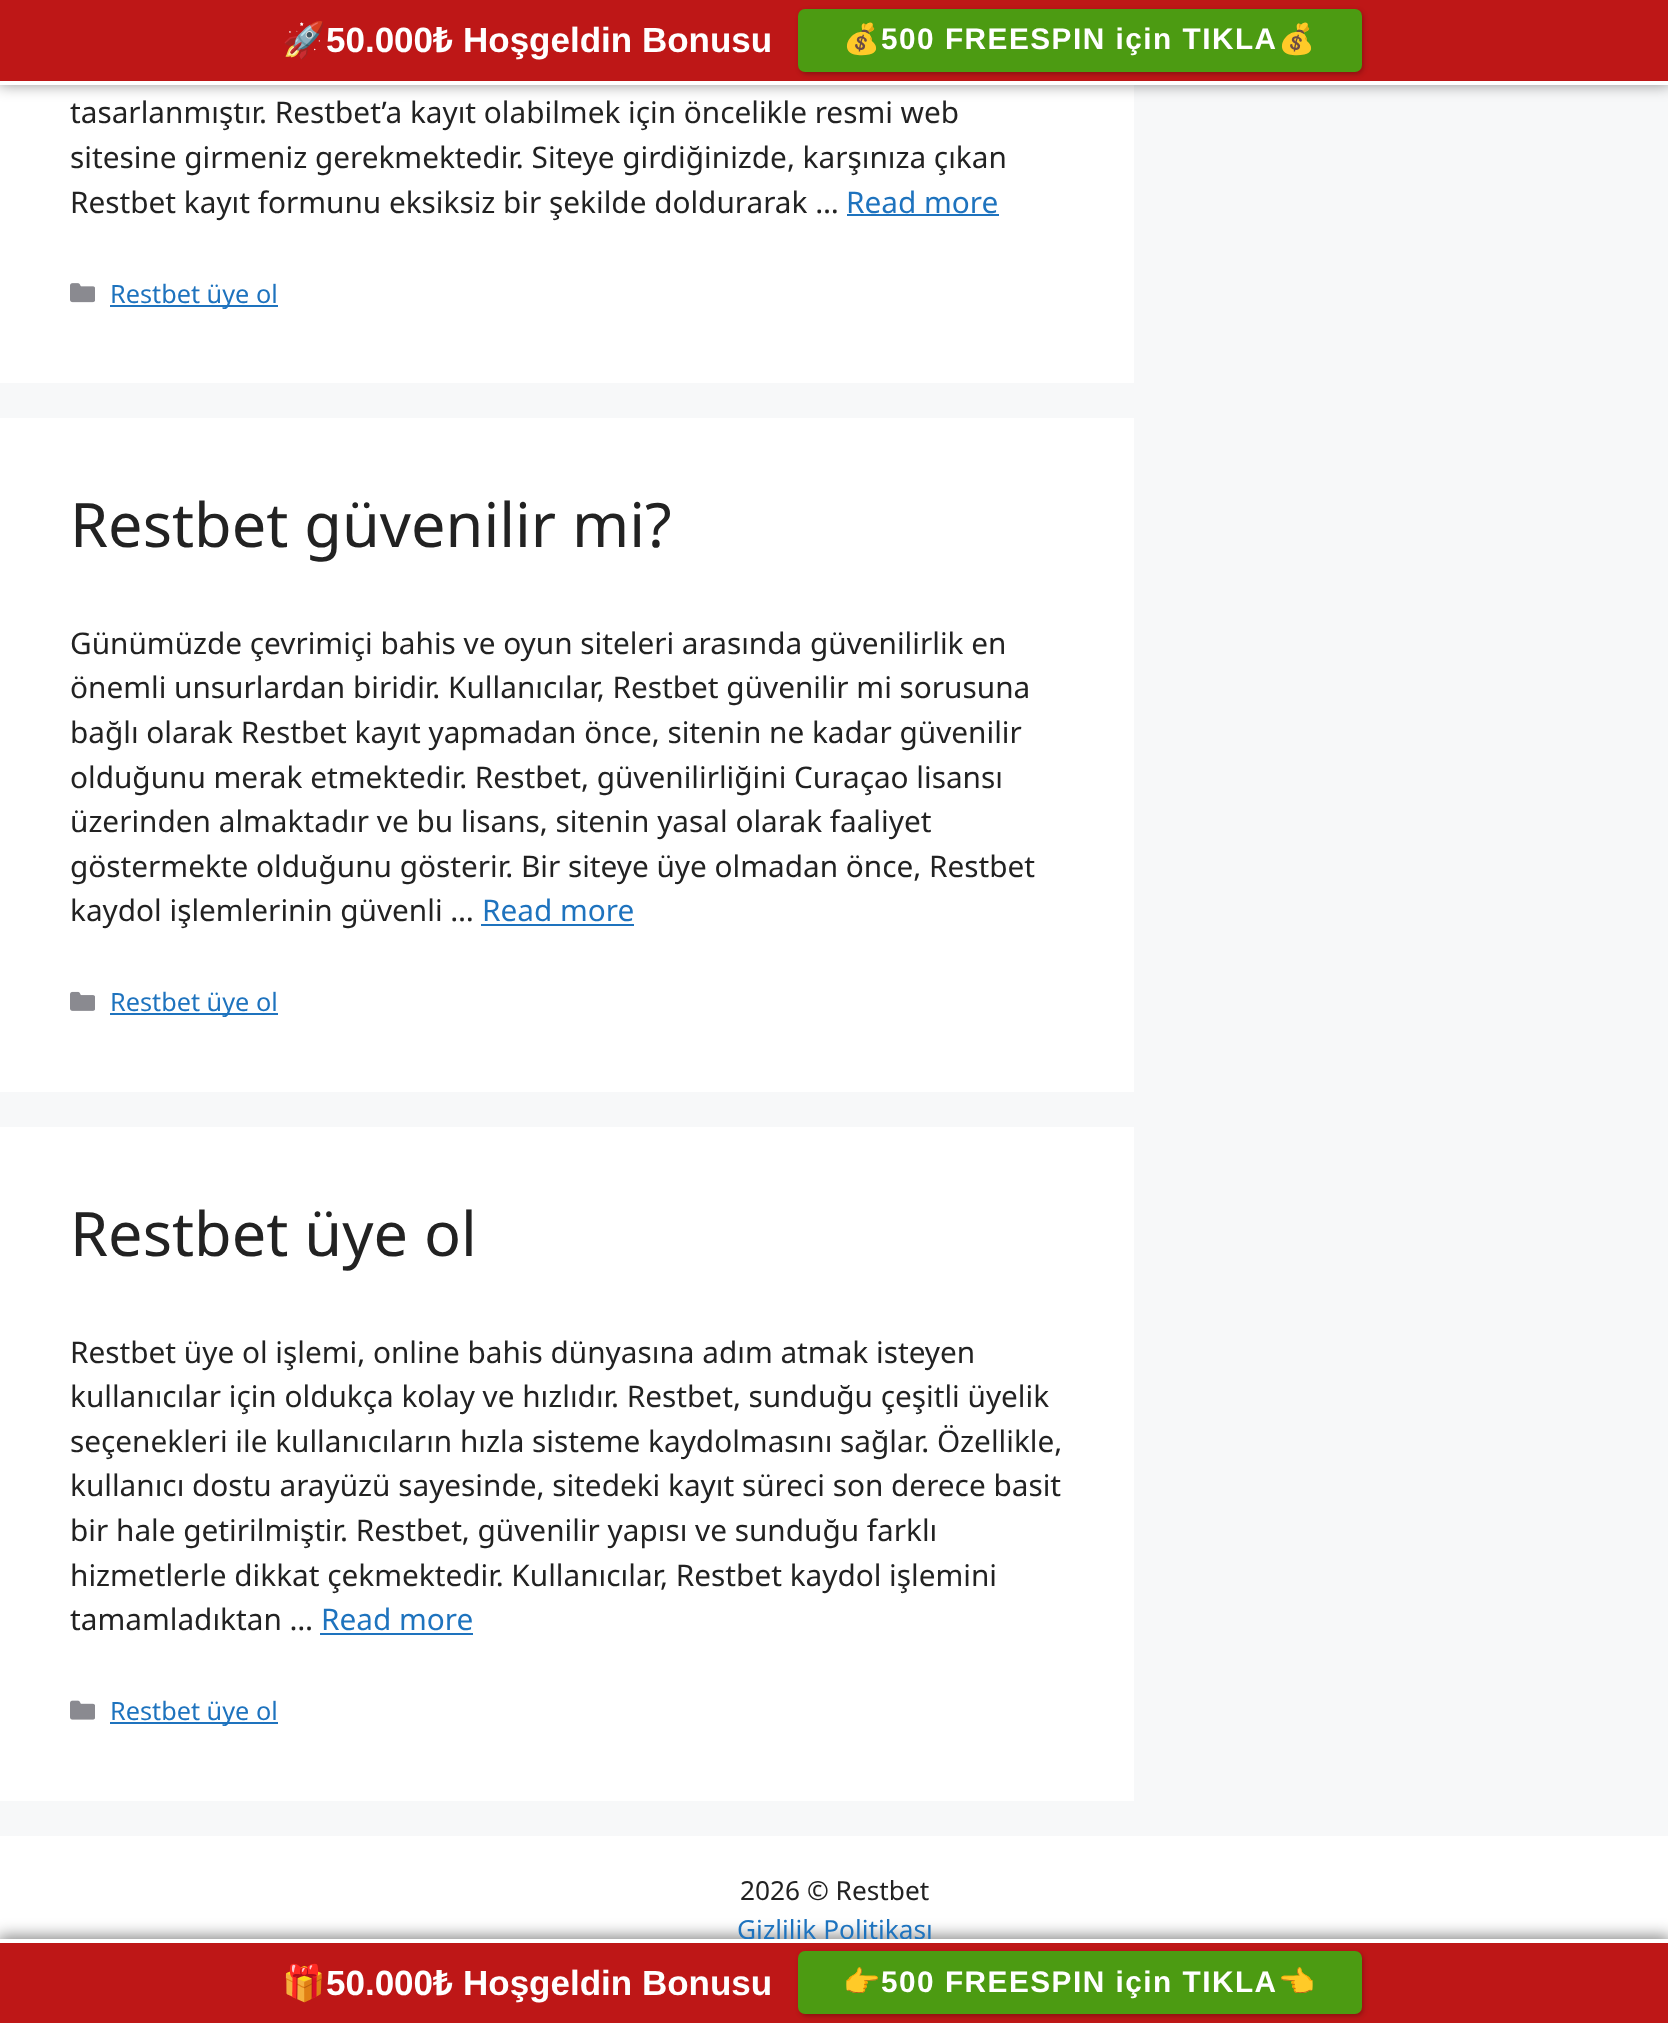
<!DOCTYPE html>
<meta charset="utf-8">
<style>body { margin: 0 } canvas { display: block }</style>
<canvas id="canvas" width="1668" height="2023"></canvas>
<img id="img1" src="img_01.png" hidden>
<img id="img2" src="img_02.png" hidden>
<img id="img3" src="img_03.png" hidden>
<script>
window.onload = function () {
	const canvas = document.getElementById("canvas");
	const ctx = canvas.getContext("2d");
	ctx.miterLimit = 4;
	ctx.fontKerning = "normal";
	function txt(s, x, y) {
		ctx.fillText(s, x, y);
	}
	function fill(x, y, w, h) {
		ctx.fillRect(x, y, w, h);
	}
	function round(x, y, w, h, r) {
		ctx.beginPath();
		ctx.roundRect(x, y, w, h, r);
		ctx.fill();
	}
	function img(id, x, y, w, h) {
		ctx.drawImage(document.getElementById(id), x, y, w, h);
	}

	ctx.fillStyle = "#F7F8F9";
	fill(0, 0, 1668, 2023);
	ctx.fillStyle = "#FFFFFF";
	fill(0, 85, 1134, 298);
	ctx.fillStyle = "rgba(0, 0, 0, 0.47)";
	ctx.filter = "blur(8px)";
	ctx.beginPath();
	ctx.rect(-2, -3, 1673, 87);
	ctx.fill();
	ctx.filter = "none";
	ctx.fillStyle = "#BE1717";
	fill(0, 0, 1668, 81);
	ctx.fillStyle = "#FFFFFF";
	fill(0, 81, 1668, 4);
	ctx.fillStyle = "rgba(0, 0, 0, 0.28)";
	ctx.filter = "blur(2.5px)";
	ctx.beginPath();
	ctx.roundRect(800, 11, 563, 63, 7);
	ctx.fill();
	ctx.filter = "none";
	ctx.fillStyle = "#4C9B12";
	round(798, 9, 564, 63, 7);
	ctx.fillStyle = "#1E73BE";
	fill(847, 214, 152, 2);
	img("img1", 70, 283, 25, 20);
	fill(110, 305, 168, 2);
	ctx.fillStyle = "#FFFFFF";
	fill(0, 418, 1134, 674);
	ctx.fillStyle = "#1E73BE";
	fill(481, 924, 153, 2);
	img("img2", 70, 991, 25, 20);
	fill(110, 1013, 168, 2);
	ctx.fillStyle = "#FFFFFF";
	fill(0, 1127, 1134, 674);
	ctx.fillStyle = "#1E73BE";
	fill(320, 1633, 153, 2);
	img("img3", 70, 1700, 25, 20);
	fill(110, 1722, 168, 2);
	ctx.fillStyle = "#FFFFFF";
	fill(0, 1836, 1668, 103);
	ctx.fillStyle = "rgba(0, 0, 0, 0.47)";
	ctx.filter = "blur(8px)";
	ctx.beginPath();
	ctx.rect(-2, 1936, 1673, 87);
	ctx.fill();
	ctx.filter = "none";
	ctx.fillStyle = "#BE1717";
	fill(0, 1943, 1668, 80);
	ctx.fillStyle = "rgba(0, 0, 0, 0.28)";
	ctx.filter = "blur(2.5px)";
	ctx.beginPath();
	ctx.roundRect(800, 1953, 563, 63, 7);
	ctx.fill();
	ctx.filter = "none";
	ctx.fillStyle = "#4C9B12";
	round(798, 1951, 564, 63, 7);
	ctx.font = "bold 35px Noto Color Emoji";
	ctx.fillStyle = "#FFFFFF";
	txt("🚀", 282, 52);
	ctx.font = "bold 35px Liberation Sans";
	txt("50.000", 326, 52);
	ctx.font = "bold 35px Noto Sans";
	txt("₺", 433, 52);
	ctx.font = "bold 35px Liberation Sans";
	txt("Hoşgeldin Bonusu", 463, 52);
	ctx.letterSpacing = "1.5px";
	ctx.font = "bold 29.75px Noto Color Emoji";
	txt("💰", 843, 49);
	ctx.font = "bold 29.75px Liberation Sans";
	txt("500 FREESPIN için TIKLA", 881, 49);
	ctx.font = "bold 29.75px Noto Color Emoji";
	txt("💰", 1278, 49);
	ctx.letterSpacing = "0px";
	ctx.font = "29.75px Noto Sans";
	ctx.fillStyle = "#222222";
	txt("tasarlanmıştır. Restbet’a kayıt olabilmek için öncelikle resmi web", 70, 123);
	txt("sitesine girmeniz gerekmektedir. Siteye girdiğinizde, karşınıza çıkan", 70, 168);
	txt("Restbet kayıt formunu eksiksiz bir şekilde doldurarak …", 70, 213);
	ctx.fillStyle = "#1E73BE";
	txt("Read more", 846, 213);
	ctx.font = "25.25px Noto Sans";
	txt("Restbet üye ol", 110, 303);
	ctx.font = "61.25px Noto Sans";
	ctx.fillStyle = "#222222";
	txt("Restbet güvenilir mi?", 70, 547);
	ctx.font = "29.75px Noto Sans";
	txt("Günümüzde çevrimiçi bahis ve oyun siteleri arasında güvenilirlik en", 70, 654);
	txt("önemli unsurlardan biridir. Kullanıcılar, Restbet güvenilir mi sorusuna", 70, 698);
	txt("bağlı olarak Restbet kayıt yapmadan önce, sitenin ne kadar güvenilir", 70, 743);
	txt("olduğunu merak etmektedir. Restbet, güvenilirliğini Curaçao lisansı", 70, 788);
	txt("üzerinden almaktadır ve bu lisans, sitenin yasal olarak faaliyet", 70, 832);
	txt("göstermekte olduğunu gösterir. Bir siteye üye olmadan önce, Restbet", 70, 877);
	txt("kaydol işlemlerinin güvenli …", 70, 921);
	ctx.fillStyle = "#1E73BE";
	txt("Read more", 482, 921);
	ctx.font = "25.25px Noto Sans";
	txt("Restbet üye ol", 110, 1011);
	ctx.font = "61.25px Noto Sans";
	ctx.fillStyle = "#222222";
	txt("Restbet üye ol", 70, 1256);
	ctx.font = "29.75px Noto Sans";
	txt("Restbet üye ol işlemi, online bahis dünyasına adım atmak isteyen", 70, 1363);
	txt("kullanıcılar için oldukça kolay ve hızlıdır. Restbet, sunduğu çeşitli üyelik", 70, 1407);
	txt("seçenekleri ile kullanıcıların hızla sisteme kaydolmasını sağlar. Özellikle,", 70, 1452);
	txt("kullanıcı dostu arayüzü sayesinde, sitedeki kayıt süreci son derece basit", 70, 1496);
	txt("bir hale getirilmiştir. Restbet, güvenilir yapısı ve sunduğu farklı", 70, 1541);
	txt("hizmetlerle dikkat çekmektedir. Kullanıcılar, Restbet kaydol işlemini", 70, 1586);
	txt("tamamladıktan …", 70, 1630);
	ctx.fillStyle = "#1E73BE";
	txt("Read more", 321, 1630);
	ctx.font = "25.25px Noto Sans";
	txt("Restbet üye ol", 110, 1720);
	ctx.font = "26.25px Noto Sans";
	ctx.fillStyle = "#222222";
	txt("2026 © Restbet", 740, 1900);
	ctx.fillStyle = "#1E73BE";
	txt("Gizlilik Politikası", 737, 1939);
	ctx.fillStyle = "#FFFFFF";
	fill(0, 1939, 1668, 4);
	ctx.font = "bold 35px Noto Color Emoji";
	txt("🎁", 282, 1995);
	ctx.font = "bold 35px Liberation Sans";
	txt("50.000", 326, 1995);
	ctx.font = "bold 35px Noto Sans";
	txt("₺", 433, 1995);
	ctx.font = "bold 35px Liberation Sans";
	txt("Hoşgeldin Bonusu", 463, 1995);
	ctx.letterSpacing = "1.5px";
	ctx.font = "bold 29.75px Noto Color Emoji";
	txt("👉", 843, 1992);
	ctx.font = "bold 29.75px Liberation Sans";
	txt("500 FREESPIN için TIKLA", 881, 1992);
	ctx.font = "bold 29.75px Noto Color Emoji";
	txt("👈", 1278, 1992);
};
</script>
